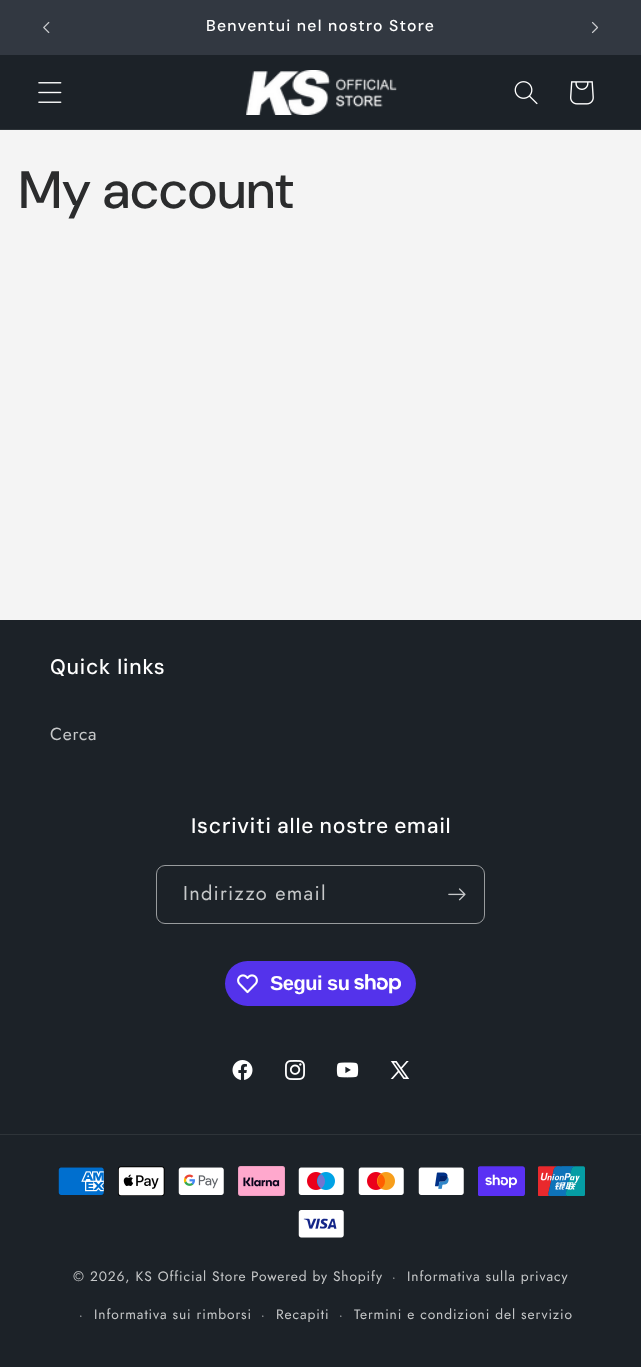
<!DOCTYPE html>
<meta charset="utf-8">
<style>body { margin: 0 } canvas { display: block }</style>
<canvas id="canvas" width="641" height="1367"></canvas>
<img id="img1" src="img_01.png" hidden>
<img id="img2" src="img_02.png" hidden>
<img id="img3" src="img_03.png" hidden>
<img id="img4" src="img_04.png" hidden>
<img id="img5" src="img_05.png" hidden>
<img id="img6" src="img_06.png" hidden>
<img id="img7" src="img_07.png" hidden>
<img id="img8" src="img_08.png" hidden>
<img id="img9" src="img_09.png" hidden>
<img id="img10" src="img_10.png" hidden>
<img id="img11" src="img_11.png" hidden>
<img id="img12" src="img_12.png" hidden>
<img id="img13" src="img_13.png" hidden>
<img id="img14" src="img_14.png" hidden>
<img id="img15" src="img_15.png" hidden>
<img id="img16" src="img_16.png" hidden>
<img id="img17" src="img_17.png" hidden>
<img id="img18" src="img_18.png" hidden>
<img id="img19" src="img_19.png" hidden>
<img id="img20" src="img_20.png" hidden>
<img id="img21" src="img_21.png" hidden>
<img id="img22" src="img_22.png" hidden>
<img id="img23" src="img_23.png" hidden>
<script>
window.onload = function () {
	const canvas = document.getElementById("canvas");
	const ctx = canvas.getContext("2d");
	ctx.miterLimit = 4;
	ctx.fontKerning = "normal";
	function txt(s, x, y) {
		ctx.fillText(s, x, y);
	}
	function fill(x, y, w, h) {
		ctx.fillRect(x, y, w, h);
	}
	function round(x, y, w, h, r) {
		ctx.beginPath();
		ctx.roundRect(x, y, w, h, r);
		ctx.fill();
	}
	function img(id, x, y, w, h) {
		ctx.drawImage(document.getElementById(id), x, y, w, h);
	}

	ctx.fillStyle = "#F4F4F4";
	fill(0, 0, 641, 1367);
	ctx.fillStyle = "#323841";
	fill(0, 0, 641, 55);
	img("img1", 43, 21, 7, 13);
	img("img2", 591, 21, 8, 13);
	ctx.fillStyle = "#1C2228";
	fill(0, 55, 641, 74);
	ctx.fillStyle = "#2E3439";
	fill(0, 129, 641, 1);
	img("img3", 38, 82, 24, 21);
	img("img4", 246, 70, 151, 45);
	img("img5", 514, 81, 24, 24);
	img("img6", 570, 81, 24, 24);
	ctx.fillStyle = "#1C2228";
	fill(0, 620, 641, 747);
	ctx.beginPath();
	ctx.roundRect(156.5, 865.5, 328, 58, 8.5);
	ctx.strokeStyle = "#999C9E";
	ctx.stroke();
	img("img7", 448, 888, 18, 13);
	ctx.fillStyle = "#5433EB";
	round(225, 961, 191, 45, 22.5);
	img("img8", 237, 974, 21, 20);
	img("img9", 354, 974, 47, 20);
	img("img10", 232, 1060, 21, 20);
	img("img11", 285, 1060, 20, 20);
	img("img12", 336, 1062, 23, 16);
	img("img13", 390, 1061, 20, 18);
	ctx.fillStyle = "#2E3439";
	fill(0, 1134, 641, 1);
	img("img14", 58, 1167, 46, 28);
	img("img15", 118, 1166, 47, 30);
	img("img16", 178, 1167, 46, 28);
	img("img17", 238, 1166, 47, 30);
	img("img18", 298, 1167, 46, 28);
	img("img19", 358, 1167, 46, 28);
	img("img20", 418, 1167, 46, 28);
	img("img21", 478, 1166, 47, 30);
	img("img22", 538, 1166, 47, 30);
	img("img23", 298, 1210, 46, 28);
	ctx.letterSpacing = "1.25px";
	ctx.font = "500 15.75px 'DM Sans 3'";
	ctx.fillStyle = "#FFFFFF";
	txt("Benventui nel nostro Store", 206, 31);
	ctx.letterSpacing = "0.8px";
	ctx.font = "500 52.5px DM Sans";
	ctx.fillStyle = "#2B2C2D";
	txt("My account", 19, 208);
	ctx.font = "500 21px 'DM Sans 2'";
	ctx.fillStyle = "#FFFFFF";
	txt("Quick links", 50, 674);
	ctx.letterSpacing = "0.75px";
	ctx.font = "17.5px Jost";
	ctx.fillStyle = "#C6C8C9";
	txt("Cerca", 50, 740);
	ctx.letterSpacing = "0.8px";
	ctx.wordSpacing = "-1px";
	ctx.font = "500 21px 'DM Sans 2'";
	ctx.fillStyle = "#FFFFFF";
	txt("Iscriviti alle nostre email", 191, 833);
	ctx.letterSpacing = "1.25px";
	ctx.wordSpacing = "0px";
	ctx.font = "20px Jost";
	ctx.fillStyle = "#C6C8C9";
	txt("Indirizzo email", 183, 900);
	ctx.letterSpacing = "-0.5px";
	ctx.font = "bold 20px Liberation Sans";
	ctx.fillStyle = "#FFFFFF";
	txt("Segui su", 270, 990);
	ctx.letterSpacing = "0.9px";
	ctx.font = "13.75px Jost";
	ctx.fillStyle = "#C6C8C9";
	txt("© 2026, KS Official Store", 73, 1281);
	ctx.font = "12px Jost";
	txt("·", 392, 1281);
	ctx.font = "13.75px Jost";
	txt("Informativa sulla privacy", 407, 1281);
	ctx.font = "12px Jost";
	txt("·", 79, 1319);
	ctx.font = "13.75px Jost";
	txt("Informativa sui rimborsi", 94, 1319);
	ctx.font = "12px Jost";
	txt("·", 261, 1319);
	ctx.font = "13.75px Jost";
	txt("Recapiti", 276, 1319);
	ctx.font = "12px Jost";
	txt("·", 339, 1319);
	ctx.font = "13.75px Jost";
	txt("Termini e condizioni del servizio", 354, 1319);
	txt("Powered by Shopify", 251, 1281);
};
</script>
